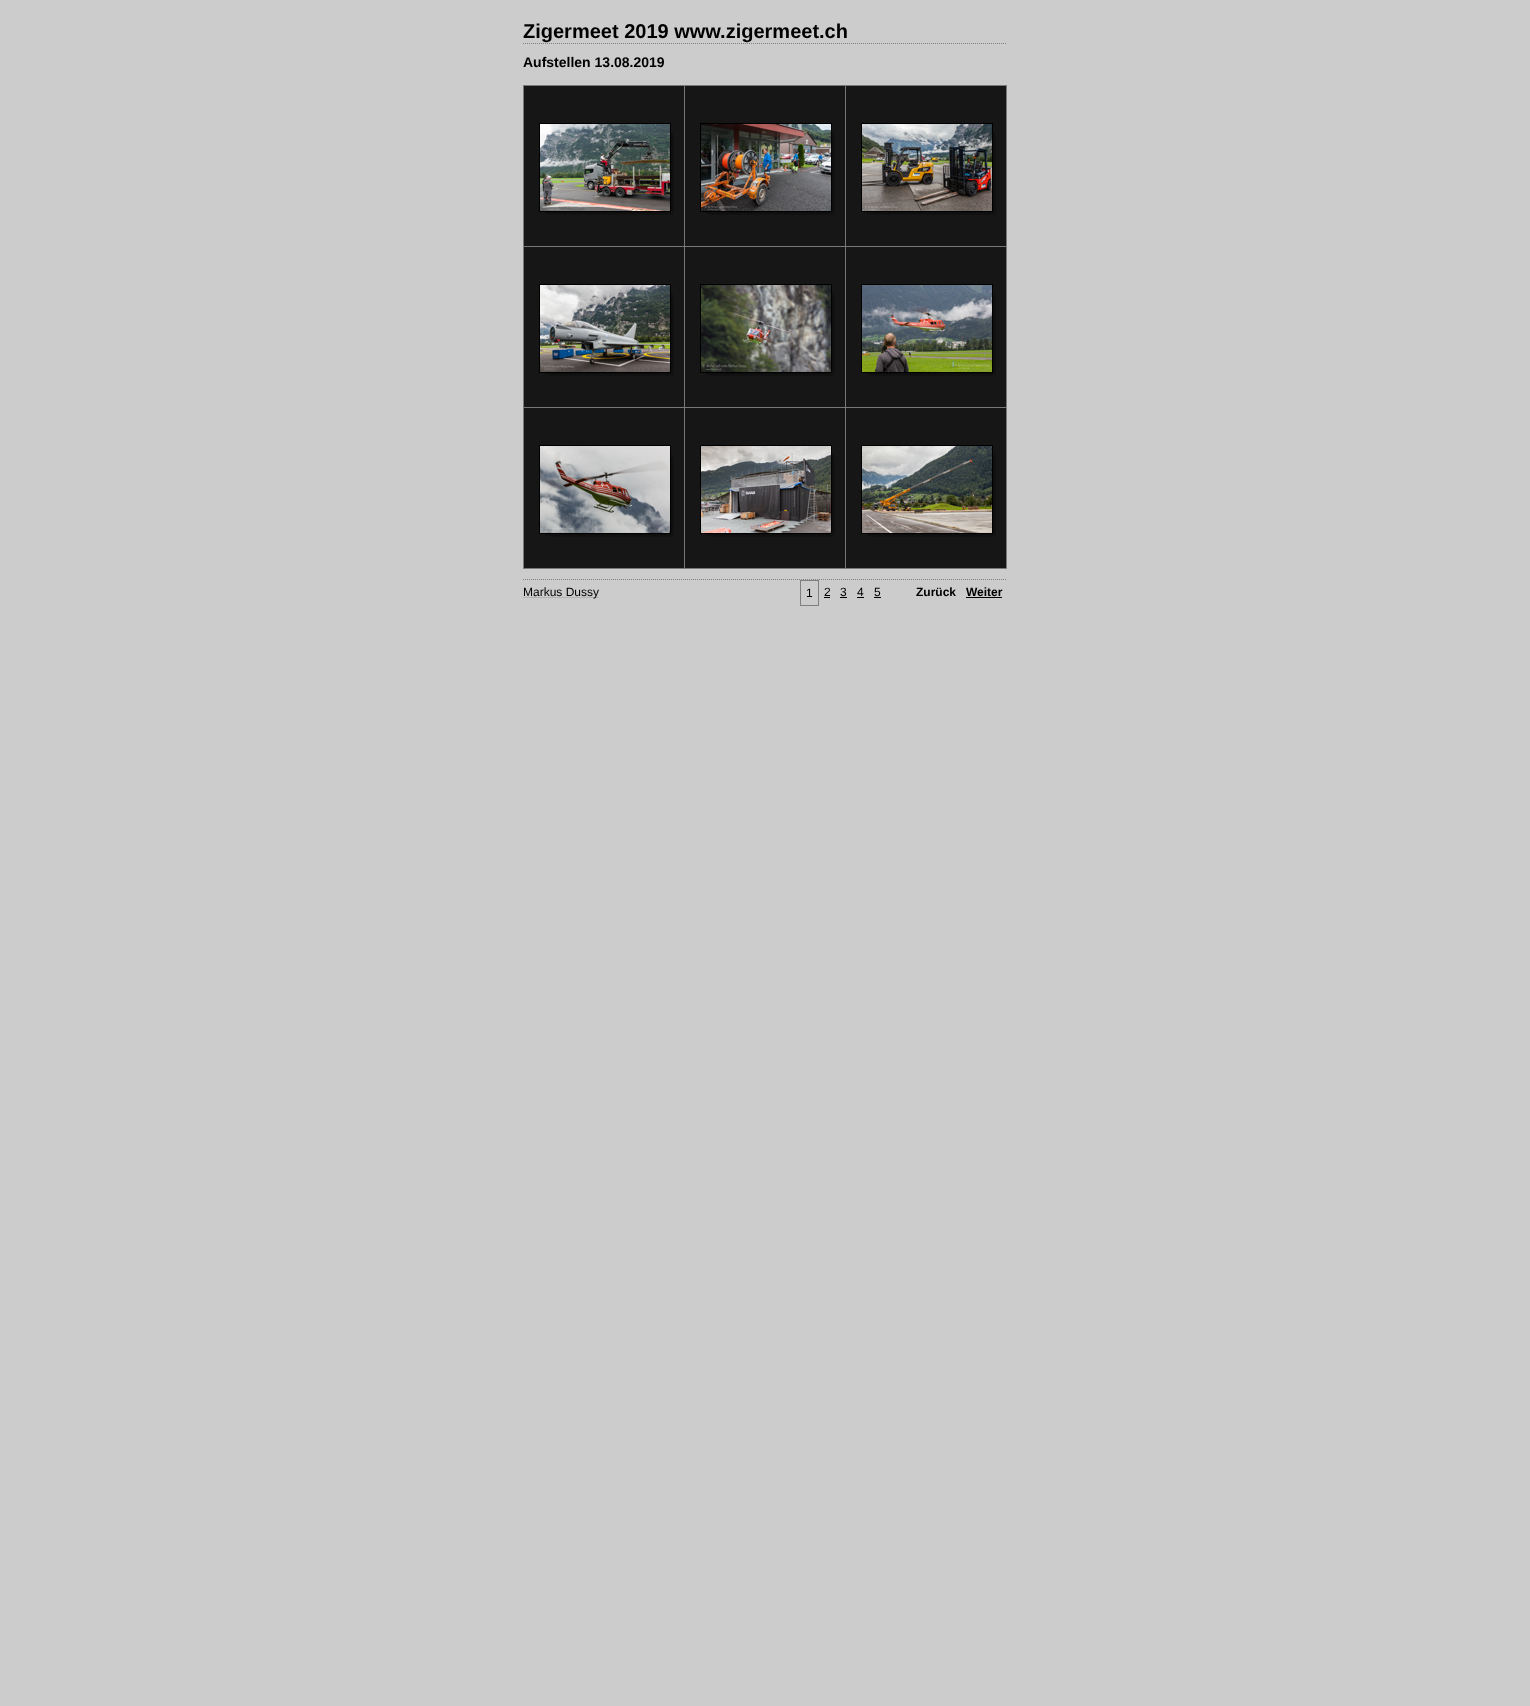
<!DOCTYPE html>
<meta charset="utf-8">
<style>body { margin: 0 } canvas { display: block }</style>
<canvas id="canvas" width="1530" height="1706"></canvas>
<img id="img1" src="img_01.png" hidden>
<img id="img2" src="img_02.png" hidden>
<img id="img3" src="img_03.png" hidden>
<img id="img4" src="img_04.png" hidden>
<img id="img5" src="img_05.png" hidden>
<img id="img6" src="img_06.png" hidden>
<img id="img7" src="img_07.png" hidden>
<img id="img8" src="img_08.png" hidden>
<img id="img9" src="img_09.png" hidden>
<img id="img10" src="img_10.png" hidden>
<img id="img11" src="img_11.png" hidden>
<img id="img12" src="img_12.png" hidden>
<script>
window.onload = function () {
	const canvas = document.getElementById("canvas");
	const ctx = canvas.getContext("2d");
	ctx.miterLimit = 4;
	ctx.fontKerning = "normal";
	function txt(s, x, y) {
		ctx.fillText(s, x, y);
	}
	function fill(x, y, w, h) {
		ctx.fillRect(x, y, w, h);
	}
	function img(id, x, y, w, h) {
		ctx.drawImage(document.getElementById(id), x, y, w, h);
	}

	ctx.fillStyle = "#CCCCCC";
	fill(0, 0, 1530, 1706);
	ctx.beginPath();
	ctx.moveTo(523, 43.5);
	ctx.lineTo(1007, 43.5);
	ctx.strokeStyle = "#7F7F7F";
	ctx.setLineDash([1, 1]);
	ctx.stroke();
	ctx.beginPath();
	ctx.moveTo(523, 579.5);
	ctx.lineTo(1007, 579.5);
	ctx.stroke();
	ctx.fillStyle = "#161616";
	fill(524, 86, 160, 160);
	ctx.fillStyle = "#787878";
	fill(523, 85, 484, 1);
	fill(523, 85, 1, 161);
	img("img1", 549, 136, 125, 79);
	ctx.strokeStyle = "#000000";
	ctx.setLineDash([]);
	ctx.strokeRect(539.5, 123.5, 131, 88);
	img("img2", 540, 124, 130, 87);
	img("img3", 671, 132, 2, 4);
	img("img4", 545, 212, 4, 2);
	ctx.fillStyle = "#161616";
	fill(685, 86, 160, 160);
	ctx.fillStyle = "#787878";
	fill(684, 85, 1, 161);
	img("img1", 710, 136, 125, 79);
	ctx.strokeRect(700.5, 123.5, 131, 88);
	img("img5", 701, 124, 130, 87);
	img("img3", 832, 132, 2, 4);
	img("img4", 706, 212, 4, 2);
	ctx.fillStyle = "#161616";
	fill(846, 86, 160, 160);
	ctx.fillStyle = "#787878";
	fill(1006, 85, 1, 161);
	fill(845, 85, 1, 161);
	img("img1", 871, 136, 125, 79);
	ctx.strokeRect(861.5, 123.5, 131, 88);
	img("img6", 862, 124, 130, 87);
	img("img3", 993, 132, 2, 4);
	img("img4", 867, 212, 4, 2);
	ctx.fillStyle = "#161616";
	fill(524, 247, 160, 160);
	ctx.fillStyle = "#787878";
	fill(523, 246, 484, 1);
	fill(523, 246, 1, 161);
	img("img1", 549, 297, 125, 79);
	ctx.strokeRect(539.5, 284.5, 131, 88);
	img("img7", 540, 285, 130, 87);
	img("img3", 671, 293, 2, 4);
	img("img4", 545, 373, 4, 2);
	ctx.fillStyle = "#161616";
	fill(685, 247, 160, 160);
	ctx.fillStyle = "#787878";
	fill(684, 246, 1, 161);
	img("img1", 710, 297, 125, 79);
	ctx.strokeRect(700.5, 284.5, 131, 88);
	img("img8", 701, 285, 130, 87);
	img("img3", 832, 293, 2, 4);
	img("img4", 706, 373, 4, 2);
	ctx.fillStyle = "#161616";
	fill(846, 247, 160, 160);
	ctx.fillStyle = "#787878";
	fill(1006, 246, 1, 161);
	fill(845, 246, 1, 161);
	img("img1", 871, 297, 125, 79);
	ctx.strokeRect(861.5, 284.5, 131, 88);
	img("img9", 862, 285, 130, 87);
	img("img3", 993, 293, 2, 4);
	img("img4", 867, 373, 4, 2);
	ctx.fillStyle = "#161616";
	fill(524, 408, 160, 160);
	ctx.fillStyle = "#787878";
	fill(523, 407, 322, 1);
	fill(523, 568, 322, 1);
	fill(523, 407, 1, 162);
	img("img1", 549, 458, 125, 79);
	ctx.strokeRect(539.5, 445.5, 131, 88);
	img("img10", 540, 446, 130, 87);
	img("img3", 671, 454, 2, 4);
	img("img4", 545, 534, 4, 2);
	ctx.fillStyle = "#161616";
	fill(685, 408, 160, 160);
	ctx.fillStyle = "#787878";
	fill(684, 407, 1, 162);
	img("img1", 710, 458, 125, 79);
	ctx.strokeRect(700.5, 445.5, 131, 88);
	img("img11", 701, 446, 130, 87);
	img("img3", 832, 454, 2, 4);
	img("img4", 706, 534, 4, 2);
	ctx.fillStyle = "#161616";
	ctx.beginPath();
	ctx.rect(845.5, 407.5, 161, 161);
	ctx.fill();
	ctx.strokeStyle = "#787878";
	ctx.stroke();
	img("img1", 871, 458, 125, 79);
	ctx.strokeStyle = "#000000";
	ctx.strokeRect(861.5, 445.5, 131, 88);
	img("img12", 862, 446, 130, 87);
	img("img3", 993, 454, 2, 4);
	img("img4", 867, 534, 4, 2);
	ctx.fillStyle = "#B3B3B3";
	fill(523, 597, 76, 1);
	ctx.strokeStyle = "#7F7F7F";
	ctx.strokeRect(800.5, 580.5, 18, 25);
	ctx.fillStyle = "#000000";
	fill(824, 597, 6, 1);
	fill(840, 597, 7, 1);
	fill(857, 597, 7, 1);
	fill(874, 597, 7, 1);
	fill(966, 597, 36, 1);
	ctx.font = "bold 20px Liberation Sans";
	txt("Zigermeet 2019 www.zigermeet.ch", 523, 38);
	ctx.font = "bold 14px Liberation Sans";
	txt("Aufstellen 13.08.2019", 523, 67);
	ctx.font = "12px Liberation Sans";
	txt("Markus Dussy", 523, 596);
	txt("1", 806, 597);
	txt("2", 824, 596);
	txt("3", 840, 596);
	txt("4", 857, 596);
	txt("5", 874, 596);
	ctx.font = "bold 12px Liberation Sans";
	txt("Zurück", 916, 596);
	txt("Weiter", 966, 596);
};
</script>
